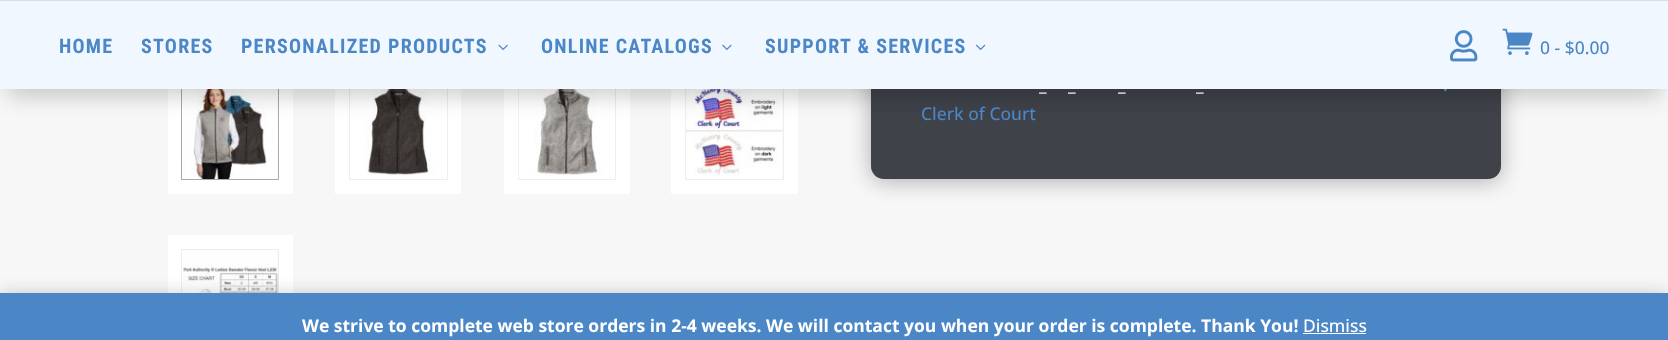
<!DOCTYPE html>
<meta charset="utf-8">
<style>body { margin: 0 } canvas { display: block }</style>
<canvas id="canvas" width="1668" height="340"></canvas>
<img id="img1" src="img_06.png" hidden>
<img id="img2" src="img_07.png" hidden>
<img id="img3" src="img_08.png" hidden>
<img id="img4" src="img_09.png" hidden>
<img id="img5" src="img_10.png" hidden>
<img id="img6" src="img_03.png" hidden>
<img id="img7" src="img_02.png" hidden>
<img id="img8" src="img_01.png" hidden>
<img id="img9" src="img_05.png" hidden>
<img id="img10" src="img_04.png" hidden>
<script>
window.onload = function () {
	const canvas = document.getElementById("canvas");
	const ctx = canvas.getContext("2d");
	ctx.miterLimit = 4;
	ctx.fontKerning = "normal";
	function txt(s, x, y) {
		ctx.fillText(s, x, y);
	}
	function fill(x, y, w, h) {
		ctx.fillRect(x, y, w, h);
	}
	function round(x, y, w, h, r) {
		ctx.beginPath();
		ctx.roundRect(x, y, w, h, r);
		ctx.fill();
	}
	function img(id, x, y, w, h) {
		ctx.drawImage(document.getElementById(id), x, y, w, h);
	}

	ctx.fillStyle = "#F7F7F7";
	fill(0, 0, 1668, 340);
	ctx.strokeStyle = "#FFFFFF";
	ctx.lineWidth = 15;
	ctx.strokeRect(175.5, 75.5, 110, 111);
	ctx.strokeStyle = "#AAAAAA";
	ctx.lineWidth = 1;
	ctx.strokeRect(181.5, 81.5, 97, 98);
	img("img1", 183, 89, 95, 90);
	ctx.strokeStyle = "#FFFFFF";
	ctx.lineWidth = 15;
	ctx.strokeRect(342.5, 75.5, 111, 111);
	ctx.strokeStyle = "#EEEEEE";
	ctx.lineWidth = 1;
	ctx.strokeRect(349.5, 81.5, 98, 98);
	img("img2", 350, 89, 96, 90);
	ctx.strokeStyle = "#FFFFFF";
	ctx.lineWidth = 15;
	ctx.strokeRect(511.5, 75.5, 111, 111);
	ctx.strokeStyle = "#EEEEEE";
	ctx.lineWidth = 1;
	ctx.strokeRect(518.5, 81.5, 97, 98);
	img("img3", 518, 89, 97, 90);
	ctx.strokeStyle = "#FFFFFF";
	ctx.lineWidth = 15;
	ctx.strokeRect(678.5, 75.5, 112, 111);
	ctx.strokeStyle = "#EEEEEE";
	ctx.lineWidth = 1;
	ctx.strokeRect(685.5, 81.5, 98, 98);
	img("img4", 686, 89, 97, 90);
	ctx.fillStyle = "rgba(0, 0, 0, 0.3)";
	ctx.filter = "blur(11px)";
	ctx.beginPath();
	ctx.roundRect(871, -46, 630, 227, 13);
	ctx.fill();
	ctx.filter = "none";
	ctx.fillStyle = "#3F4249";
	round(871, -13, 630, 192, 13);
	ctx.fillStyle = "rgba(0, 0, 0, 0.2)";
	ctx.filter = "blur(11px)";
	ctx.beginPath();
	ctx.rect(8, 23, 1653, 73);
	ctx.fill();
	ctx.filter = "none";
	ctx.fillStyle = "#D7DDE5";
	fill(0, 0, 1668, 1);
	ctx.strokeStyle = "#FFFFFF";
	ctx.lineWidth = 15;
	ctx.strokeRect(175.5, 242.5, 110, 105);
	ctx.strokeStyle = "#EEEEEE";
	ctx.lineWidth = 1;
	ctx.strokeRect(181.5, 249.5, 97, 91);
	img("img5", 183, 250, 95, 43);
	ctx.fillStyle = "rgba(0, 0, 0, 0.2)";
	ctx.filter = "blur(9px)";
	ctx.beginPath();
	ctx.rect(0, 294, 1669, 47);
	ctx.fill();
	ctx.filter = "none";
	ctx.fillStyle = "#4B87C7";
	fill(0, 293, 1668, 47);
	ctx.fillStyle = "#FCFBFE";
	fill(1303, 333, 63, 1);
	ctx.font = "500 17.5px Open Sans";
	ctx.fillStyle = "#4B87C7";
	txt(".", 1443, 91);
	ctx.fillStyle = "#F1F7FE";
	fill(0, 1, 1668, 88);
	img("img6", 976, 44, 10, 6);
	ctx.letterSpacing = "1.25px";
	ctx.font = "bold 20px Roboto Condensed";
	ctx.fillStyle = "#4B87C7";
	txt("SUPPORT & SERVICES", 765, 53);
	img("img7", 722, 44, 10, 6);
	txt("ONLINE CATALOGS", 541, 53);
	img("img8", 498, 44, 10, 6);
	txt("PERSONALIZED PRODUCTS", 241, 53);
	txt("STORES", 141, 53);
	txt("HOME", 59, 53);
	ctx.letterSpacing = "0px";
	ctx.font = "500 17.5px Open Sans";
	txt("0 - $0.00", 1540, 54);
	img("img9", 1502, 28, 31, 27);
	img("img10", 1450, 30, 28, 32);
	ctx.fillStyle = "#FFFFFF";
	txt("_", 1039, 91);
	txt("_", 1068, 91);
	txt("_", 1118, 91);
	txt("_", 1196, 91);
	ctx.fillStyle = "#4B87C7";
	txt("Clerk of Court", 921, 120);
	ctx.font = "bold 17.5px Open Sans";
	ctx.fillStyle = "#FFFFFF";
	txt("We strive to complete web store orders in 2-4 weeks. We will contact you when your order is complete. Thank You!", 302, 332);
	ctx.font = "500 17.5px Open Sans";
	txt("Dismiss", 1303, 332);
};
</script>
